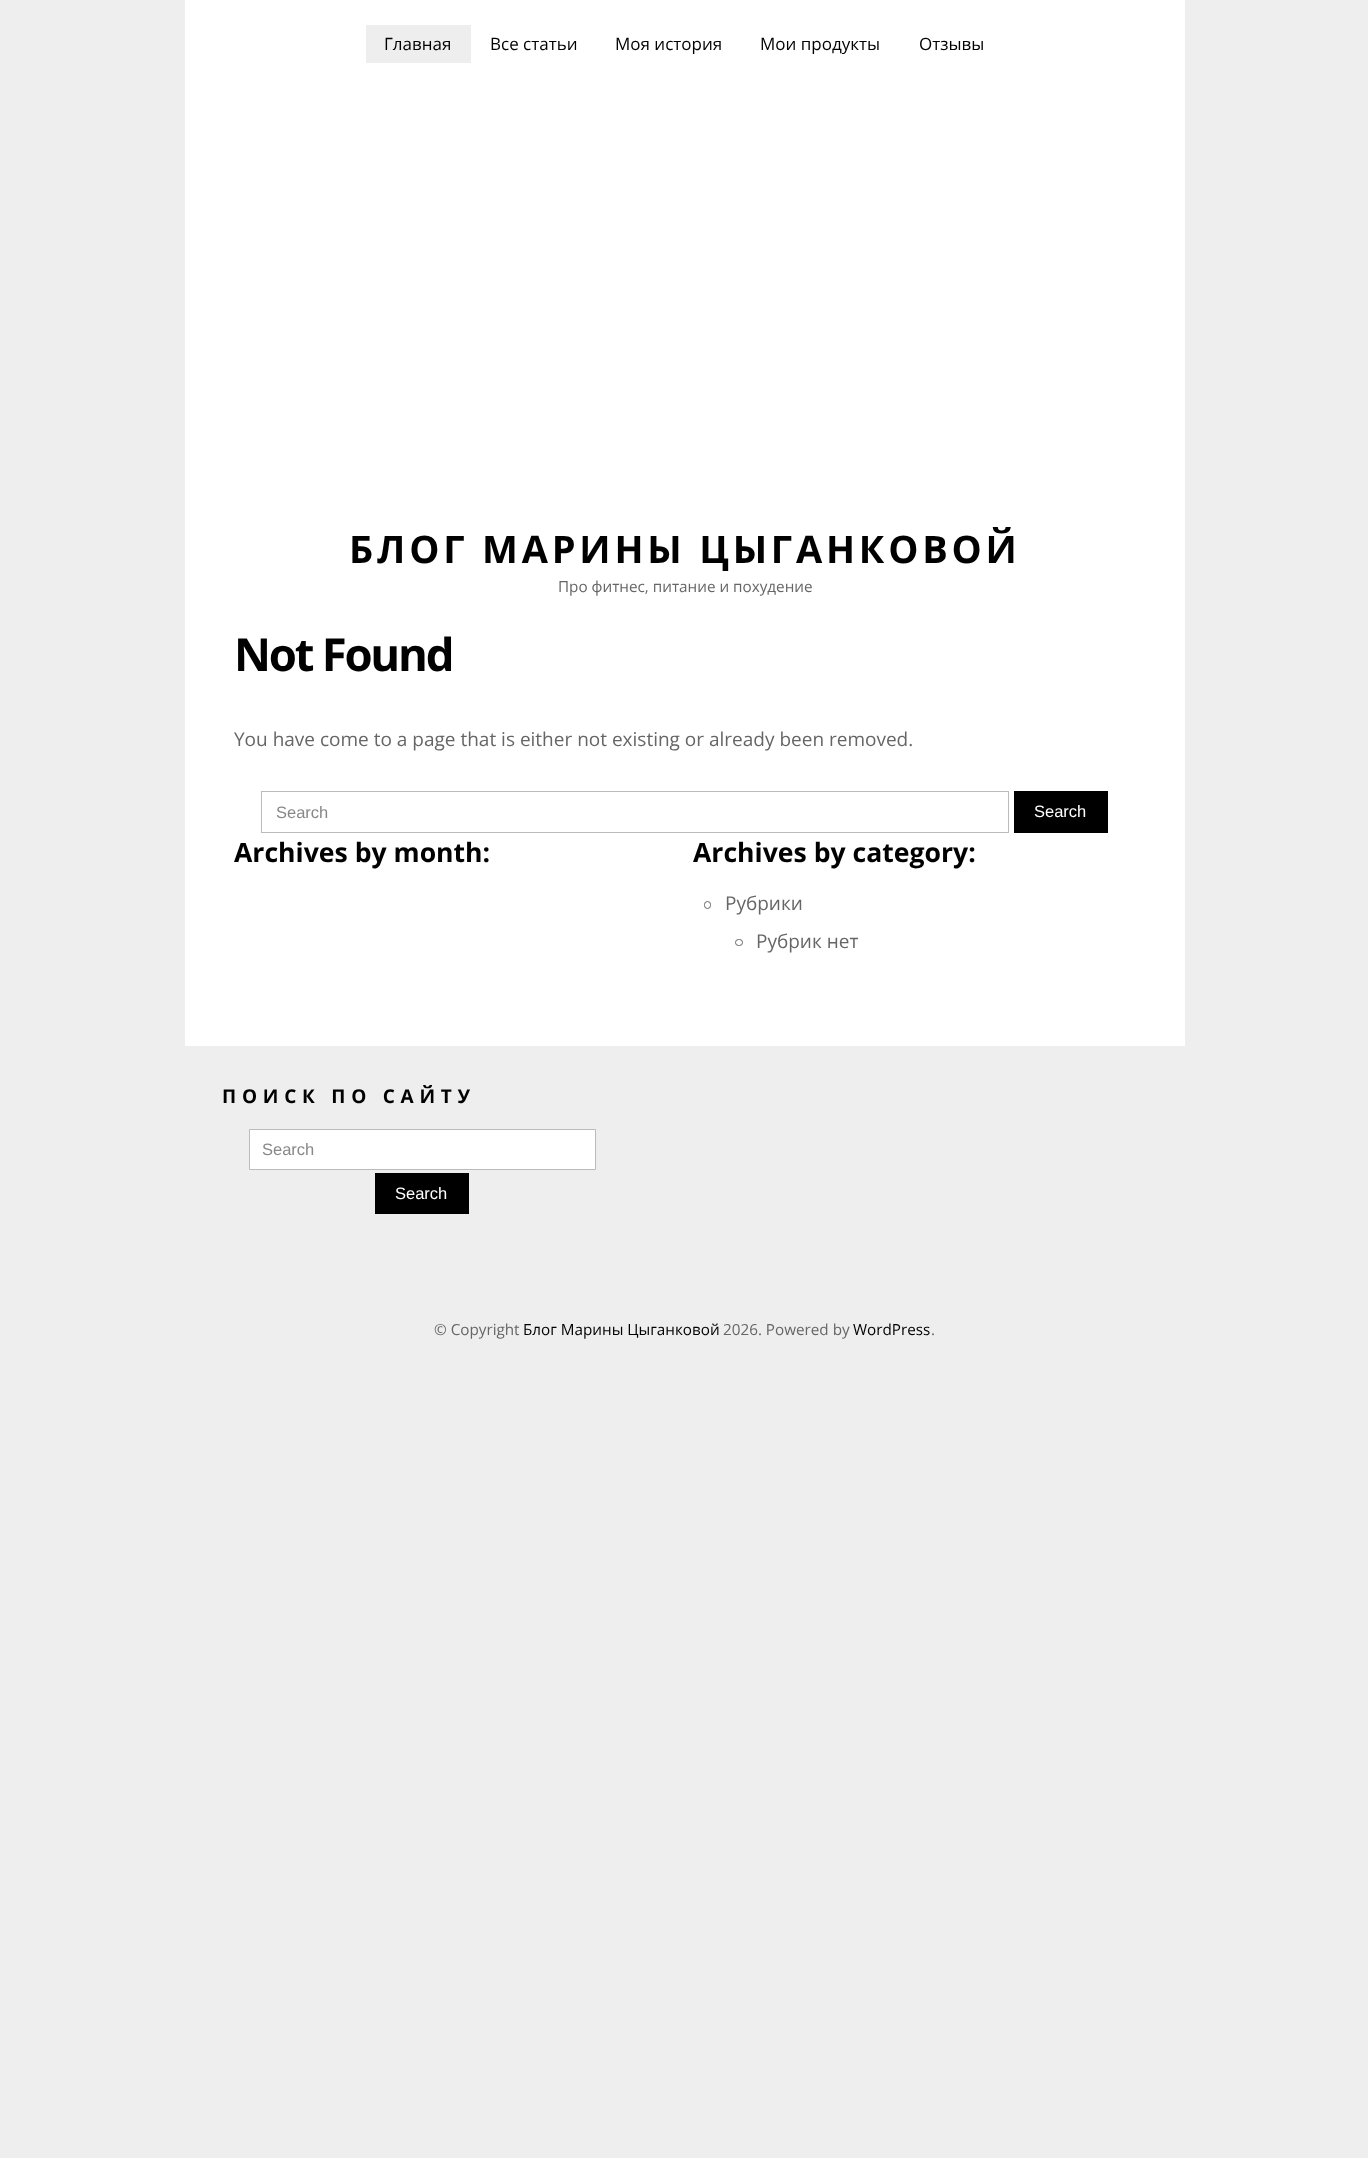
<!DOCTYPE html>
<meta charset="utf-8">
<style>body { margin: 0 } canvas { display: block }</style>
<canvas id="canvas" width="1368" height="2158"></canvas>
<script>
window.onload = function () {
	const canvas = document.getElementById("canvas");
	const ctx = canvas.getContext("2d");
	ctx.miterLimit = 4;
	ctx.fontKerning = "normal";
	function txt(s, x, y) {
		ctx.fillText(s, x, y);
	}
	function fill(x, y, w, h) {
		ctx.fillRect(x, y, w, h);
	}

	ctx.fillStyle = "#EEEEEE";
	fill(0, 0, 1368, 2158);
	ctx.fillStyle = "#FFFFFF";
	fill(185, 0, 1000, 1046);
	ctx.fillStyle = "#EEEEEE";
	fill(366, 25, 105, 38);
	ctx.strokeStyle = "#BBBBBB";
	ctx.strokeRect(261.5, 791.5, 747, 41);
	ctx.fillStyle = "#000000";
	fill(1014, 791, 94, 42);
	ctx.beginPath();
	ctx.roundRect(704.5, 901.5, 6, 7, 3);
	ctx.strokeStyle = "#666666";
	ctx.stroke();
	ctx.beginPath();
	ctx.roundRect(735.5, 939.5, 7, 6, 3);
	ctx.stroke();
	ctx.fillStyle = "#FFFFFF";
	ctx.beginPath();
	ctx.rect(249.5, 1129.5, 346, 40);
	ctx.fill();
	ctx.strokeStyle = "#BBBBBB";
	ctx.stroke();
	ctx.fillStyle = "#000000";
	fill(375, 1173, 94, 41);
	ctx.font = "17px Open Sans";
	txt("Главная", 384, 50);
	txt("Все статьи", 490, 50);
	txt("Моя история", 615, 50);
	txt("Мои продукты", 760, 50);
	txt("Отзывы", 919, 50);
	ctx.letterSpacing = "3.8px";
	ctx.font = "bold 38px Open Sans";
	txt("БЛОГ МАРИНЫ ЦЫГАНКОВОЙ", 349, 563);
	ctx.letterSpacing = "0px";
	ctx.font = "15.25px Open Sans";
	ctx.fillStyle = "#666666";
	txt("Про фитнес, питание и похудение", 558, 592);
	ctx.letterSpacing = "-2.25px";
	ctx.font = "bold 45.5px Open Sans";
	ctx.fillStyle = "#000000";
	txt("Not Found", 234, 671);
	ctx.letterSpacing = "0px";
	ctx.font = "19px Open Sans";
	ctx.fillStyle = "#666666";
	txt("You have come to a page that is either not existing or already been removed.", 234, 746);
	ctx.font = "16.5px Liberation Sans";
	ctx.fillStyle = "#888888";
	txt("Search", 276, 818);
	ctx.fillStyle = "#FFFFFF";
	txt("Search", 1034, 817);
	ctx.font = "bold 26.6px Open Sans";
	ctx.fillStyle = "#000000";
	txt("Archives by month:", 234, 862);
	txt("Archives by category:", 693, 862);
	ctx.font = "19px Open Sans";
	ctx.fillStyle = "#666666";
	txt("Рубрики", 725, 910);
	txt("Рубрик нет", 756, 948);
	ctx.letterSpacing = "5.75px";
	ctx.font = "bold 19px Open Sans";
	ctx.fillStyle = "#000000";
	txt("ПОИСК ПО САЙТУ", 222, 1103);
	ctx.letterSpacing = "0px";
	ctx.font = "16.5px Liberation Sans";
	ctx.fillStyle = "#888888";
	txt("Search", 262, 1155);
	ctx.fillStyle = "#FFFFFF";
	txt("Search", 395, 1199);
	ctx.font = "15.25px Open Sans";
	ctx.fillStyle = "#666666";
	txt("© Copyright", 434, 1335);
	ctx.fillStyle = "#000000";
	txt("Блог Марины Цыганковой", 523, 1335);
	ctx.fillStyle = "#666666";
	txt("2026. Powered by", 723, 1335);
	ctx.fillStyle = "#000000";
	txt("WordPress", 853, 1335);
	ctx.fillStyle = "#666666";
	txt(".", 931, 1335);
};
</script>
